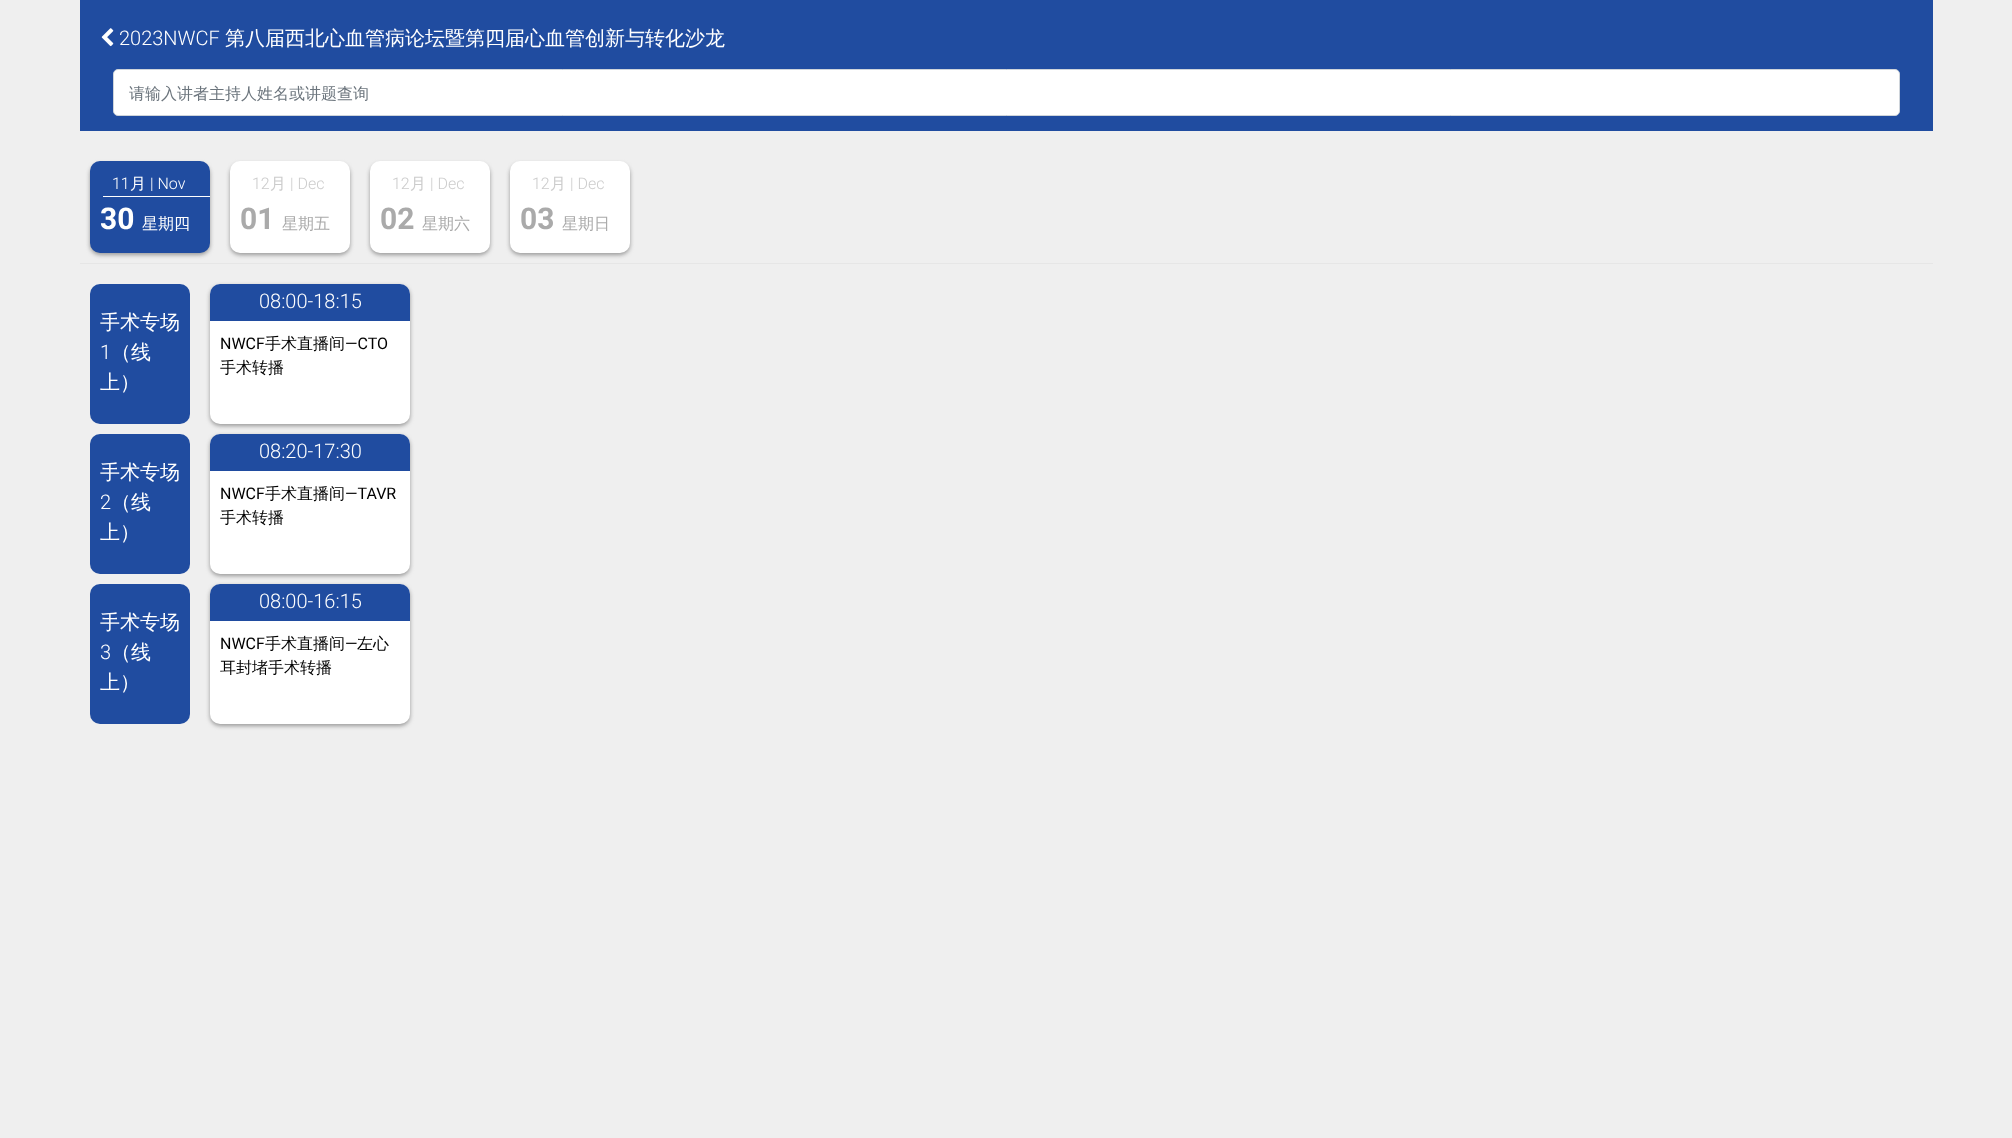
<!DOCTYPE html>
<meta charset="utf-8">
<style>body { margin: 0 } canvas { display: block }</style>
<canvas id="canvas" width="2012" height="1138"></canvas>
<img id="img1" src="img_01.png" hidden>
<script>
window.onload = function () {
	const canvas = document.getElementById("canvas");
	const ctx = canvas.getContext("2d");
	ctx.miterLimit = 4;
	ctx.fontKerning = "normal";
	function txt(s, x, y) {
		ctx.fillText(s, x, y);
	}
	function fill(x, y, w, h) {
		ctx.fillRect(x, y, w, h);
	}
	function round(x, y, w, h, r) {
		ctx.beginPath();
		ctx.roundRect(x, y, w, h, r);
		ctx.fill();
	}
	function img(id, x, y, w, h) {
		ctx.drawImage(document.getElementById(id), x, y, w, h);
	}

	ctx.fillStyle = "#EFEFEF";
	fill(0, 0, 2012, 1138);
	ctx.fillStyle = "#204CA0";
	fill(80, 0, 1853, 131);
	img("img1", 101, 28, 13, 19);
	ctx.fillStyle = "#FFFFFF";
	ctx.beginPath();
	ctx.roundRect(113.5, 69.5, 1786, 46, 4.5);
	ctx.fill();
	ctx.strokeStyle = "#CED4DA";
	ctx.stroke();
	ctx.fillStyle = "#E6E6E6";
	fill(80, 263, 1853, 1);
	ctx.fillStyle = "#999999";
	ctx.filter = "blur(2px)";
	ctx.beginPath();
	ctx.roundRect(90, 164, 120, 91, 10);
	ctx.fill();
	ctx.filter = "none";
	ctx.fillStyle = "#204CA0";
	round(90, 161, 120, 92, 10);
	ctx.fillStyle = "#FFFFFF";
	fill(103, 196, 107, 1);
	ctx.fillStyle = "#999999";
	ctx.filter = "blur(2px)";
	ctx.beginPath();
	ctx.roundRect(230, 164, 120, 91, 10);
	ctx.fill();
	ctx.filter = "none";
	ctx.fillStyle = "#FFFFFF";
	round(230, 161, 120, 92, 10);
	ctx.fillStyle = "#999999";
	ctx.filter = "blur(2px)";
	ctx.beginPath();
	ctx.roundRect(370, 164, 120, 91, 10);
	ctx.fill();
	ctx.filter = "none";
	ctx.fillStyle = "#FFFFFF";
	round(370, 161, 120, 92, 10);
	ctx.fillStyle = "#999999";
	ctx.filter = "blur(2px)";
	ctx.beginPath();
	ctx.roundRect(510, 164, 120, 91, 10);
	ctx.fill();
	ctx.filter = "none";
	ctx.fillStyle = "#FFFFFF";
	round(510, 161, 120, 92, 10);
	ctx.fillStyle = "#204CA0";
	round(90, 284, 100, 140, 10);
	round(90, 434, 100, 140, 10);
	round(90, 584, 100, 140, 10);
	ctx.fillStyle = "#999999";
	ctx.filter = "blur(2px)";
	ctx.beginPath();
	ctx.roundRect(210, 286, 200, 140, 10);
	ctx.fill();
	ctx.filter = "none";
	ctx.fillStyle = "#FFFFFF";
	round(210, 284, 200, 140, 10);
	ctx.fillStyle = "#204CA0";
	ctx.beginPath();
	ctx.roundRect(210, 284, 200, 37, [10, 10, 0, 0]);
	ctx.fill();
	ctx.fillStyle = "#999999";
	ctx.filter = "blur(2px)";
	ctx.beginPath();
	ctx.roundRect(210, 436, 200, 140, 10);
	ctx.fill();
	ctx.filter = "none";
	ctx.fillStyle = "#FFFFFF";
	round(210, 434, 200, 140, 10);
	ctx.fillStyle = "#204CA0";
	ctx.beginPath();
	ctx.roundRect(210, 434, 200, 37, [10, 10, 0, 0]);
	ctx.fill();
	ctx.fillStyle = "#999999";
	ctx.filter = "blur(2px)";
	ctx.beginPath();
	ctx.roundRect(210, 586, 200, 140, 10);
	ctx.fill();
	ctx.filter = "none";
	ctx.fillStyle = "#FFFFFF";
	round(210, 584, 200, 140, 10);
	ctx.fillStyle = "#204CA0";
	ctx.beginPath();
	ctx.roundRect(210, 584, 200, 37, [10, 10, 0, 0]);
	ctx.fill();
	ctx.font = "300 20px Roboto";
	ctx.fillStyle = "#FFFFFF";
	txt("2023NWCF", 119, 45);
	ctx.font = "500 20px WenQuanYi Zen Hei";
	txt("第八届西北心血管病论坛暨第四届心血管创新与转化沙龙", 225, 45);
	ctx.font = "500 16px WenQuanYi Zen Hei";
	ctx.fillStyle = "#6C757D";
	txt("请输入讲者主持人姓名或讲题查询", 129, 99);
	ctx.font = "300 16px Roboto";
	ctx.fillStyle = "#FFFFFF";
	txt("11", 112, 189);
	ctx.font = "500 16px WenQuanYi Zen Hei";
	txt("月", 130, 189);
	ctx.font = "300 16px Roboto";
	txt("| Nov", 150, 189);
	ctx.font = "bold 30px Roboto";
	txt("30", 100, 229);
	ctx.font = "500 16px WenQuanYi Zen Hei";
	txt("星期四", 142, 229);
	ctx.font = "300 16px Roboto";
	ctx.fillStyle = "#CCCCCC";
	txt("12", 252, 189);
	ctx.font = "500 16px WenQuanYi Zen Hei";
	txt("月", 270, 189);
	ctx.font = "300 16px Roboto";
	txt("| Dec", 290, 189);
	ctx.font = "bold 30px Roboto";
	ctx.fillStyle = "#AAAAAA";
	txt("01", 240, 229);
	ctx.font = "500 16px WenQuanYi Zen Hei";
	txt("星期五", 282, 229);
	ctx.font = "300 16px Roboto";
	ctx.fillStyle = "#CCCCCC";
	txt("12", 392, 189);
	ctx.font = "500 16px WenQuanYi Zen Hei";
	txt("月", 410, 189);
	ctx.font = "300 16px Roboto";
	txt("| Dec", 430, 189);
	ctx.font = "bold 30px Roboto";
	ctx.fillStyle = "#AAAAAA";
	txt("02", 380, 229);
	ctx.font = "500 16px WenQuanYi Zen Hei";
	txt("星期六", 422, 229);
	ctx.font = "300 16px Roboto";
	ctx.fillStyle = "#CCCCCC";
	txt("12", 532, 189);
	ctx.font = "500 16px WenQuanYi Zen Hei";
	txt("月", 550, 189);
	ctx.font = "300 16px Roboto";
	txt("| Dec", 570, 189);
	ctx.font = "bold 30px Roboto";
	ctx.fillStyle = "#AAAAAA";
	txt("03", 520, 229);
	ctx.font = "500 16px WenQuanYi Zen Hei";
	txt("星期日", 562, 229);
	ctx.font = "500 20px WenQuanYi Zen Hei";
	ctx.fillStyle = "#FFFFFF";
	txt("手术专场", 100, 329);
	ctx.font = "300 20px Roboto";
	txt("1", 100, 359);
	ctx.font = "500 20px WenQuanYi Zen Hei";
	txt("（线", 111, 359);
	txt("上）", 100, 389);
	txt("手术专场", 100, 479);
	ctx.font = "300 20px Roboto";
	txt("2", 100, 509);
	ctx.font = "500 20px WenQuanYi Zen Hei";
	txt("（线", 111, 509);
	txt("上）", 100, 539);
	txt("手术专场", 100, 629);
	ctx.font = "300 20px Roboto";
	txt("3", 100, 659);
	ctx.font = "500 20px WenQuanYi Zen Hei";
	txt("（线", 111, 659);
	txt("上）", 100, 689);
	ctx.font = "300 20px Roboto";
	txt("08:00-18:15", 259, 308);
	ctx.font = "16px Roboto";
	ctx.fillStyle = "#000000";
	txt("NWCF", 220, 349);
	ctx.font = "500 16px WenQuanYi Zen Hei";
	txt("手术直播间", 265, 349);
	ctx.font = "16px Roboto";
	txt("—CTO", 345, 349);
	ctx.font = "500 16px WenQuanYi Zen Hei";
	txt("手术转播", 220, 373);
	ctx.font = "300 20px Roboto";
	ctx.fillStyle = "#FFFFFF";
	txt("08:20-17:30", 259, 458);
	ctx.font = "16px Roboto";
	ctx.fillStyle = "#000000";
	txt("NWCF", 220, 499);
	ctx.font = "500 16px WenQuanYi Zen Hei";
	txt("手术直播间", 265, 499);
	ctx.font = "16px Roboto";
	txt("—TAVR", 345, 499);
	ctx.font = "500 16px WenQuanYi Zen Hei";
	txt("手术转播", 220, 523);
	ctx.font = "300 20px Roboto";
	ctx.fillStyle = "#FFFFFF";
	txt("08:00-16:15", 259, 608);
	ctx.font = "16px Roboto";
	ctx.fillStyle = "#000000";
	txt("NWCF", 220, 649);
	ctx.font = "500 16px WenQuanYi Zen Hei";
	txt("手术直播间", 265, 649);
	ctx.font = "16px Roboto";
	txt("—", 345, 649);
	ctx.font = "500 16px WenQuanYi Zen Hei";
	txt("左心", 357, 649);
	txt("耳封堵手术转播", 220, 673);
};
</script>
